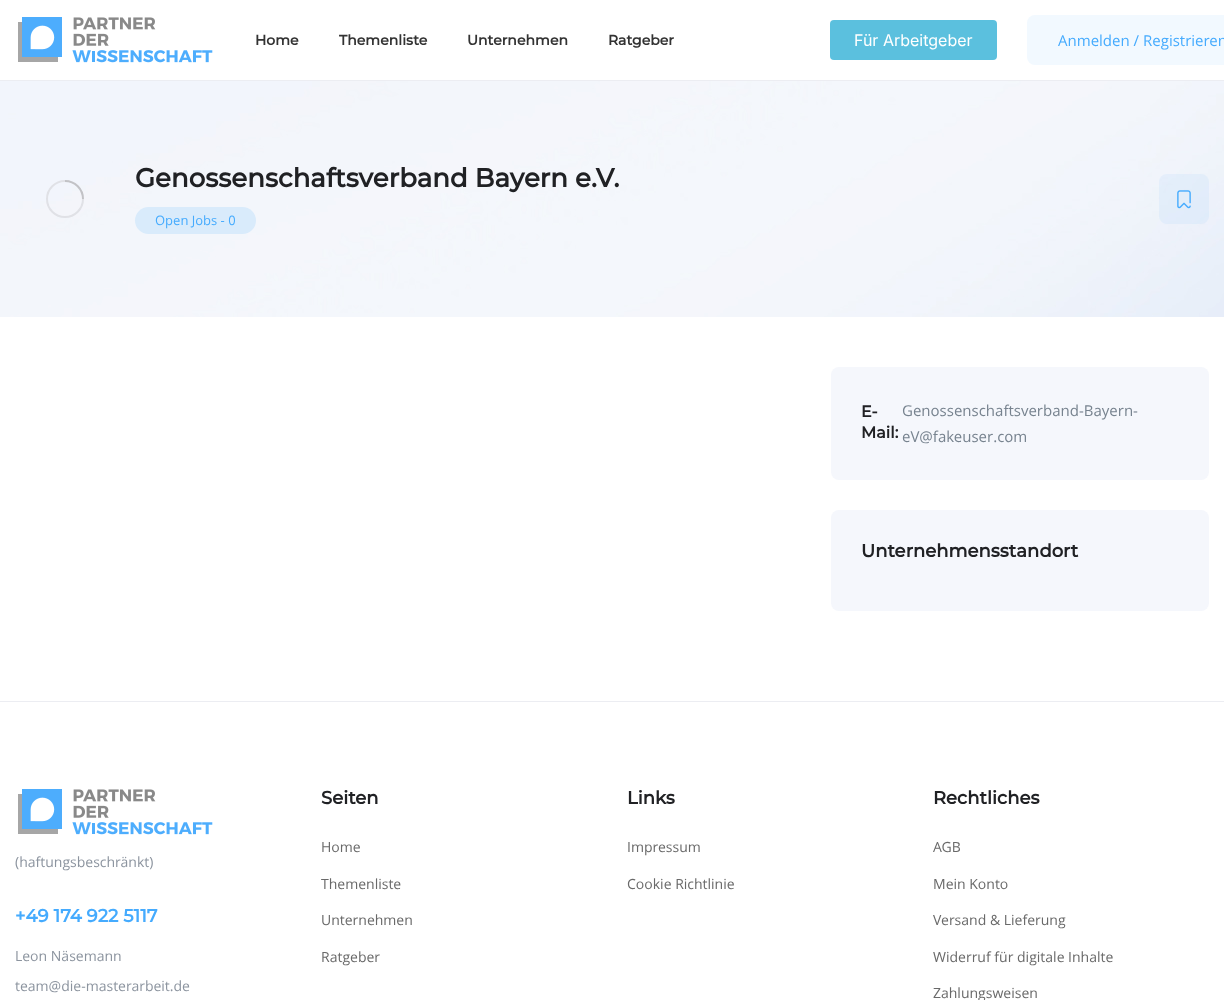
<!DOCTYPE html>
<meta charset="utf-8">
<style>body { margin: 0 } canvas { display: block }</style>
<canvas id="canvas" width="1224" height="1000"></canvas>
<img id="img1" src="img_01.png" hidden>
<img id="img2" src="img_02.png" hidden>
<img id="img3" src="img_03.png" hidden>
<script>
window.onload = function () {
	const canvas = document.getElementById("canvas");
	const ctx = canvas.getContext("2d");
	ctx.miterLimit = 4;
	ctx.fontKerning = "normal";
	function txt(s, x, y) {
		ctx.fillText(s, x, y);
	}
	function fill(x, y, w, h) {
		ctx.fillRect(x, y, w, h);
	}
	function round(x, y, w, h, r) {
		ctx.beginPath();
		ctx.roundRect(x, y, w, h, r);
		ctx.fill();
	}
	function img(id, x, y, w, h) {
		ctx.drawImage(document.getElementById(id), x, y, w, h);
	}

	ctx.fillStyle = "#FFFFFF";
	fill(0, 0, 1224, 1000);
	ctx.fillStyle = "#ECEDF2";
	fill(0, 80, 1224, 1);
	img("img1", 18, 17, 195, 46);
	ctx.fillStyle = "#5BC0DE";
	round(830, 20, 167, 40, 4);
	ctx.fillStyle = "#F2F9FF";
	round(1027, 15, 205, 50, 8);
	img("img2", 0, 81, 1224, 236);
	ctx.beginPath();
	ctx.arc(65, 199, 18, 0, Math.PI * 2);
	ctx.strokeStyle = "#E0E1E6";
	ctx.lineWidth = 2;
	ctx.stroke();
	ctx.beginPath();
	ctx.moveTo(83, 199);
	ctx.bezierCurveTo(83, 189, 75, 181, 65, 181);
	ctx.strokeStyle = "rgba(102, 102, 102, 0.25)";
	ctx.stroke();
	ctx.fillStyle = "#D9EBFB";
	round(135, 207, 121, 27, 13.5);
	ctx.fillStyle = "rgba(69, 171, 254, 0.07)";
	round(1159, 174, 50, 50, 8);
	img("img3", 1177, 190, 14, 19);
	ctx.fillStyle = "#F5F7FC";
	round(831, 367, 378, 113, 8);
	round(831, 510, 378, 101, 8);
	ctx.fillStyle = "#ECEDF2";
	fill(0, 701, 1224, 1);
	img("img1", 18, 789, 195, 46);
	ctx.font = "bold 14px Montserrat";
	ctx.fillStyle = "#333333";
	txt("Home", 255, 45);
	txt("Themenliste", 339, 45);
	txt("Unternehmen", 467, 45);
	txt("Ratgeber", 608, 45);
	ctx.font = "16px Inter";
	ctx.fillStyle = "#FFFFFF";
	txt("Für Arbeitgeber", 854, 46);
	ctx.font = "15px Open Sans";
	ctx.fillStyle = "#45ABFE";
	txt("Anmelden / Registrieren", 1058, 46);
	ctx.font = "bold 26px Montserrat";
	ctx.fillStyle = "#202124";
	txt("Genossenschaftsverband Bayern e.V.", 135, 187);
	ctx.font = "13px Open Sans";
	ctx.fillStyle = "#45ABFE";
	txt("Open Jobs - 0", 155, 225);
	ctx.font = "bold 16px Montserrat";
	ctx.fillStyle = "#202124";
	txt("E-", 861, 417);
	txt("Mail:", 861, 438);
	ctx.font = "15px Open Sans";
	ctx.fillStyle = "#77838F";
	txt("Genossenschaftsverband-Bayern-", 902, 416);
	txt("eV@fakeuser.com", 902, 442);
	ctx.font = "bold 18px Montserrat";
	ctx.fillStyle = "#202124";
	txt("Unternehmensstandort", 861, 557);
	ctx.font = "14px Open Sans";
	ctx.fillStyle = "#8C949F";
	txt("(haftungsbeschränkt)", 15, 867);
	ctx.font = "bold 18px Montserrat";
	ctx.fillStyle = "#45ABFE";
	txt("+49 174 922 5117", 15, 922);
	ctx.font = "14px Open Sans";
	ctx.fillStyle = "#8C949F";
	txt("Leon Näsemann", 15, 961);
	txt("team@die-masterarbeit.de", 15, 991);
	ctx.font = "bold 18px Montserrat";
	ctx.fillStyle = "#202124";
	txt("Seiten", 321, 804);
	ctx.font = "14px Open Sans";
	ctx.fillStyle = "#696969";
	txt("Home", 321, 852);
	txt("Themenliste", 321, 889);
	txt("Unternehmen", 321, 925);
	txt("Ratgeber", 321, 962);
	ctx.font = "bold 18px Montserrat";
	ctx.fillStyle = "#202124";
	txt("Links", 627, 804);
	ctx.font = "14px Open Sans";
	ctx.fillStyle = "#696969";
	txt("Impressum", 627, 852);
	txt("Cookie Richtlinie", 627, 889);
	ctx.font = "bold 18px Montserrat";
	ctx.fillStyle = "#202124";
	txt("Rechtliches", 933, 804);
	ctx.font = "14px Open Sans";
	ctx.fillStyle = "#696969";
	txt("AGB", 933, 852);
	txt("Mein Konto", 933, 889);
	txt("Versand & Lieferung", 933, 925);
	txt("Widerruf für digitale Inhalte", 933, 962);
	txt("Zahlungsweisen", 933, 998);
};
</script>
